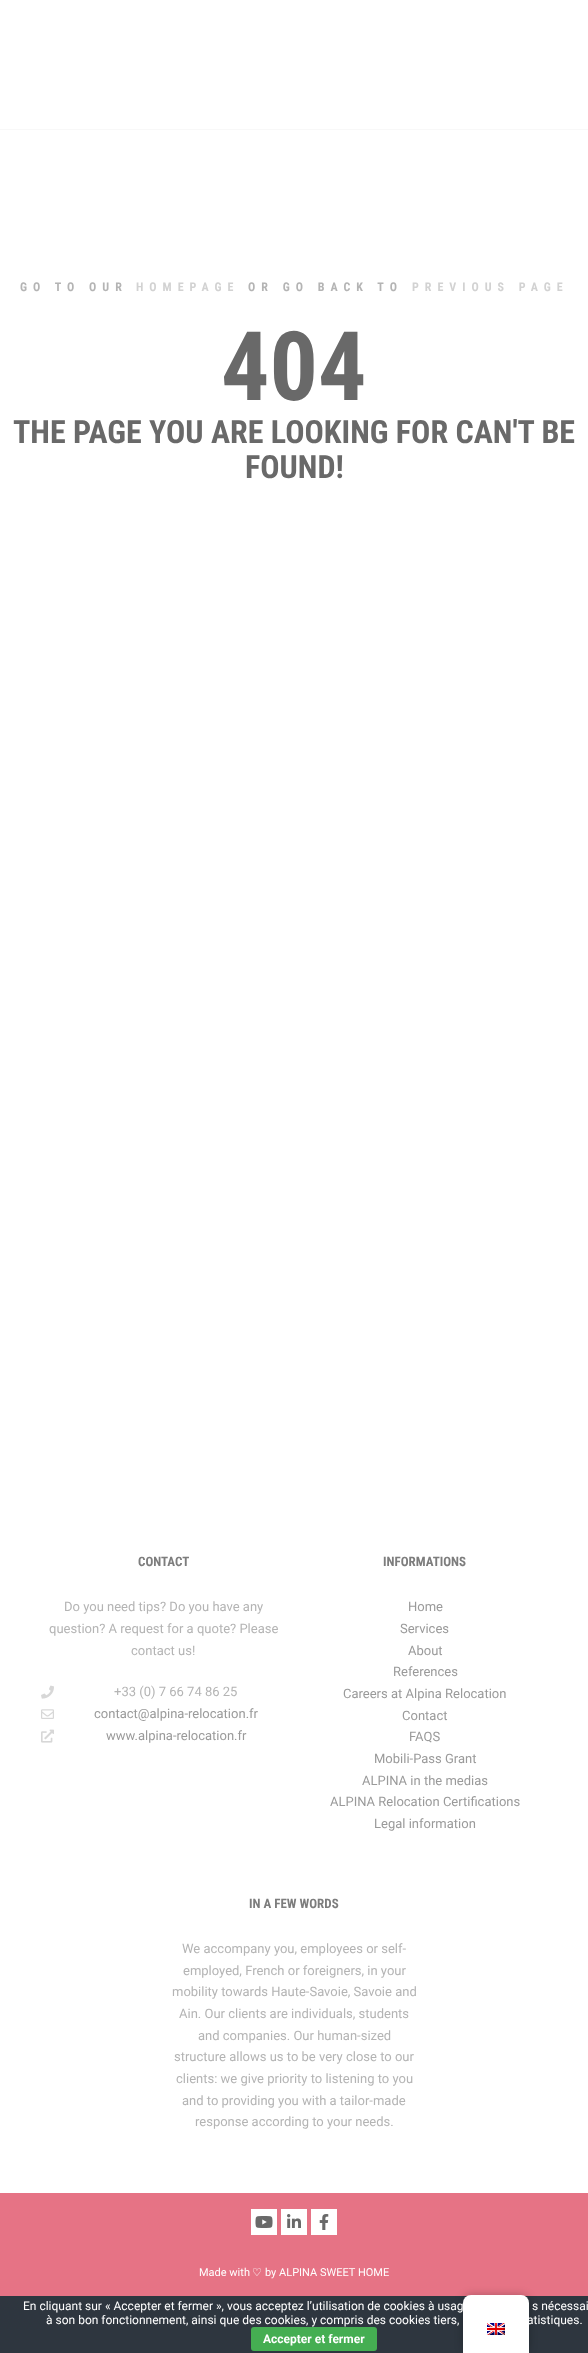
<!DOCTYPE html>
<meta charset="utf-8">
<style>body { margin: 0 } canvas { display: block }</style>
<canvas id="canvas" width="588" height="2353"></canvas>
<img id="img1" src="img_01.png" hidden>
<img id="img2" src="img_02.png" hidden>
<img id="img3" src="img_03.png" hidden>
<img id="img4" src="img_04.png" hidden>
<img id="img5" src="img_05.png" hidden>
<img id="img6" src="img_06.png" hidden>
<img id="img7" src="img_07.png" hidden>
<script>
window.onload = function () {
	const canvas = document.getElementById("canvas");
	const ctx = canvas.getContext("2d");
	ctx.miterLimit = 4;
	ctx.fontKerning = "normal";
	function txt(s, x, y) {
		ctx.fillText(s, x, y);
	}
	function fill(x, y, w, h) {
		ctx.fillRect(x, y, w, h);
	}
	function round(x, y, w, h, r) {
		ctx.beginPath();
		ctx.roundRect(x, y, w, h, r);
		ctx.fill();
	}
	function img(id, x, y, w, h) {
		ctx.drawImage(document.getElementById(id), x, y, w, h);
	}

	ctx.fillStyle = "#FFFFFF";
	fill(0, 0, 588, 2353);
	ctx.fillStyle = "#F8F8F8";
	fill(0, 129, 588, 1);
	img("img1", 41, 1685, 13, 14);
	img("img2", 41, 1709, 13, 10);
	img("img3", 41, 1729, 13, 14);
	ctx.fillStyle = "#E67385";
	fill(0, 2193, 588, 103);
	ctx.fillStyle = "#FFFFFF";
	fill(251, 2209, 26, 26);
	img("img4", 255, 2216, 18, 12);
	fill(281, 2209, 26, 26);
	img("img5", 287, 2214, 14, 14);
	fill(311, 2209, 26, 26);
	img("img6", 319, 2214, 10, 16);
	ctx.fillStyle = "#2E363F";
	fill(0, 2296, 588, 57);
	ctx.fillStyle = "rgba(0, 0, 0, 0.25)";
	ctx.filter = "blur(4px)";
	ctx.beginPath();
	ctx.roundRect(463, 2295, 66, 58, 8);
	ctx.fill();
	ctx.filter = "none";
	ctx.fillStyle = "#FFFFFF";
	ctx.beginPath();
	ctx.roundRect(463, 2295, 66, 58, [8, 8, 0, 0]);
	ctx.fill();
	img("img7", 487, 2323, 18, 12);
	ctx.fillStyle = "#45AE52";
	round(251, 2327, 126, 24, 3);
	ctx.letterSpacing = "6px";
	ctx.font = "bold 12px Roboto Condensed";
	ctx.fillStyle = "#B4B4B4";
	txt("GO TO OUR", 20, 291);
	ctx.fillStyle = "#D2D2D2";
	txt("HOMEPAGE", 136, 291);
	ctx.fillStyle = "#B4B4B4";
	txt("OR GO BACK TO", 248, 291);
	ctx.fillStyle = "#D2D2D2";
	txt("PREVIOUS PAGE", 412, 291);
	ctx.letterSpacing = "0px";
	ctx.font = "bold 96px Roboto Condensed";
	ctx.fillStyle = "#696969";
	txt("404", 221, 400);
	ctx.font = "bold 32px Roboto Condensed";
	txt("THE PAGE YOU ARE LOOKING FOR CAN'T BE", 13, 443);
	txt("FOUND!", 245, 478);
	ctx.font = "bold 13px Roboto Condensed";
	ctx.fillStyle = "#7D7D7D";
	txt("CONTACT", 138, 1566);
	ctx.font = "13px Roboto";
	ctx.fillStyle = "#B4B4B4";
	txt("Do you need tips? Do you have any", 64, 1611);
	txt("question? A request for a quote? Please", 49, 1633);
	txt("contact us!", 131, 1655);
	txt("+33 (0) 7 66 74 86 25", 114, 1696);
	ctx.fillStyle = "#9A9A9A";
	txt("contact@alpina-relocation.fr", 94, 1718);
	txt("www.alpina-relocation.fr", 106, 1740);
	ctx.font = "bold 13px Roboto Condensed";
	ctx.fillStyle = "#7D7D7D";
	txt("INFORMATIONS", 383, 1566);
	ctx.font = "13px Roboto";
	ctx.fillStyle = "#9A9A9A";
	txt("Home", 408, 1611);
	txt("Services", 400, 1633);
	txt("About", 408, 1655);
	txt("References", 393, 1676);
	txt("Careers at Alpina Relocation", 343, 1698);
	txt("Contact", 402, 1720);
	txt("FAQS", 409, 1741);
	txt("Mobili-Pass Grant", 374, 1763);
	txt("ALPINA in the medias", 362, 1785);
	txt("ALPINA Relocation Certifications", 330, 1806);
	txt("Legal information", 374, 1828);
	ctx.font = "bold 13px Roboto Condensed";
	ctx.fillStyle = "#7D7D7D";
	txt("IN A FEW WORDS", 249, 1908);
	ctx.font = "13px Roboto";
	ctx.fillStyle = "#B4B4B4";
	txt("We accompany you, employees or self-", 182, 1953);
	txt("employed, French or foreigners, in your", 183, 1975);
	txt("mobility towards Haute-Savoie, Savoie and", 172, 1996);
	txt("Ain. Our clients are individuals, students", 179, 2018);
	txt("and companies. Our human-sized", 198, 2040);
	txt("structure allows us to be very close to our", 174, 2061);
	txt("clients: we give priority to listening to you", 176, 2083);
	txt("and to providing you with a tailor-made", 182, 2105);
	txt("response according to your needs.", 195, 2126);
	ctx.font = "11px Roboto";
	ctx.fillStyle = "#FFFFFF";
	txt("Made with", 199, 2276);
	ctx.font = "11px DejaVu Sans";
	txt("♡", 252, 2276);
	ctx.font = "11px Roboto";
	txt("by ALPINA SWEET HOME", 265, 2276);
	ctx.font = "12px Roboto";
	txt("En cliquant sur « Accepter et fermer », vous acceptez l’utilisation de cookies à usag", 23, 2310);
	txt("s nécessai", 532, 2310);
	txt("à son bon fonctionnement, ainsi que des cookies, y compris des cookies tiers,", 46, 2324);
	txt("atistiques.", 527, 2324);
	ctx.font = "bold 12px Roboto";
	txt("Accepter et fermer", 263, 2343);
};
</script>
